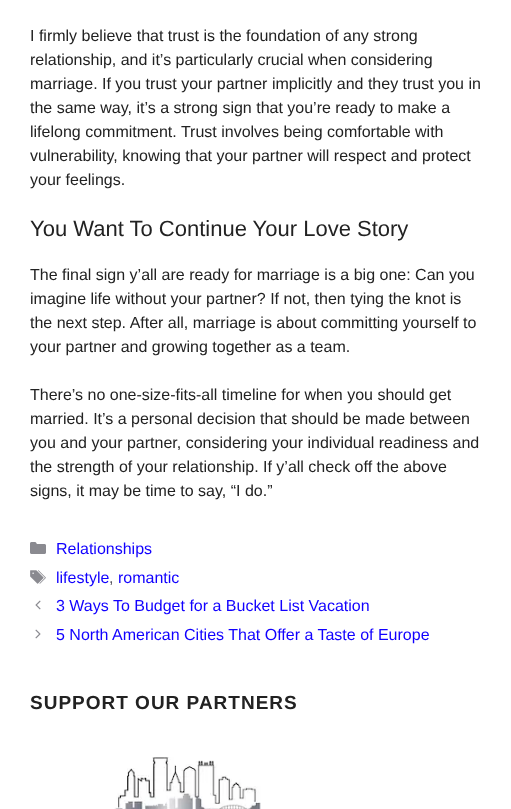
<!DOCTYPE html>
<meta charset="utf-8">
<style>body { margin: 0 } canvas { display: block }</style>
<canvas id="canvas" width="511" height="809"></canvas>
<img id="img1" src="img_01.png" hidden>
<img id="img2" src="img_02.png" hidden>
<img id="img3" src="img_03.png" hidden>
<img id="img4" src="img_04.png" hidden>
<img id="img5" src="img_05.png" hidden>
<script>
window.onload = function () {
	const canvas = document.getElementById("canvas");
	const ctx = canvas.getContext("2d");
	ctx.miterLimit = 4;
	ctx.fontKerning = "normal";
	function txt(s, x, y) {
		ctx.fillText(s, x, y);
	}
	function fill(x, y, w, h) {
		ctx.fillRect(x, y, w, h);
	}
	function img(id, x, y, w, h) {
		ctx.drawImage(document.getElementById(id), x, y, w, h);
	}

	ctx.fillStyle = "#FFFFFF";
	fill(0, 0, 511, 809);
	img("img1", 30, 542, 16, 12);
	img("img2", 30, 570, 16, 14);
	img("img3", 35, 600, 6, 10);
	img("img4", 35, 629, 6, 10);
	img("img5", 114, 757, 147, 52);
	ctx.font = "16px Liberation Sans";
	ctx.fillStyle = "#222222";
	txt("I firmly believe that trust is the foundation of any strong", 30, 41);
	txt("relationship, and it’s particularly crucial when considering", 30, 65);
	txt("marriage. If you trust your partner implicitly and they trust you in", 30, 89);
	txt("the same way, it’s a strong sign that you’re ready to make a", 30, 113);
	txt("lifelong commitment. Trust involves being comfortable with", 30, 137);
	txt("vulnerability, knowing that your partner will respect and protect", 30, 161);
	txt("your feelings.", 30, 185);
	ctx.font = "22px Liberation Sans";
	txt("You Want To Continue Your Love Story", 30, 236);
	ctx.font = "16px Liberation Sans";
	txt("The final sign y’all are ready for marriage is a big one: Can you", 30, 280);
	txt("imagine life without your partner? If not, then tying the knot is", 30, 304);
	txt("the next step. After all, marriage is about committing yourself to", 30, 328);
	txt("your partner and growing together as a team.", 30, 352);
	txt("There’s no one-size-fits-all timeline for when you should get", 30, 400);
	txt("married. It’s a personal decision that should be made between", 30, 424);
	txt("you and your partner, considering your individual readiness and", 30, 448);
	txt("the strength of your relationship. If y’all check off the above", 30, 472);
	txt("signs, it may be time to say, “I do.”", 30, 496);
	ctx.fillStyle = "#1100FF";
	txt("Relationships", 56, 554);
	txt("lifestyle", 56, 583);
	ctx.fillStyle = "#575760";
	txt(",", 109, 583);
	ctx.fillStyle = "#1100FF";
	txt("romantic", 118, 583);
	txt("3 Ways To Budget for a Bucket List Vacation", 56, 611);
	txt("5 North American Cities That Offer a Taste of Europe", 56, 640);
	ctx.letterSpacing = "1px";
	ctx.font = "bold 19px Liberation Sans";
	ctx.fillStyle = "#222222";
	txt("SUPPORT OUR PARTNERS", 30, 709);
};
</script>
